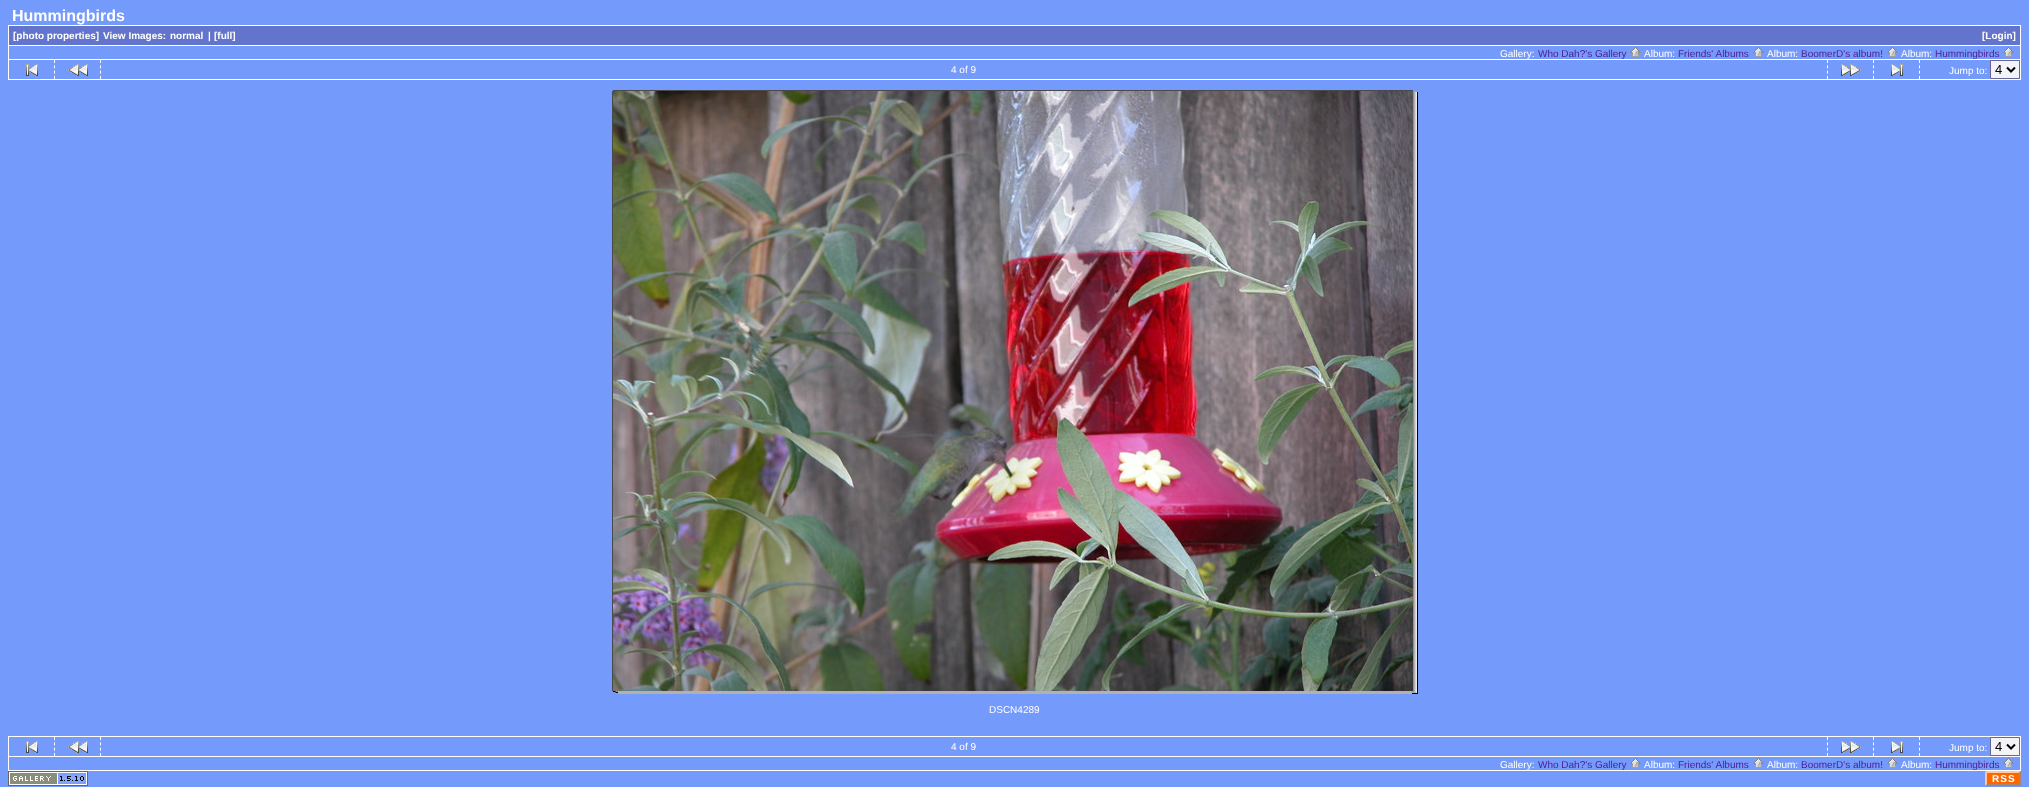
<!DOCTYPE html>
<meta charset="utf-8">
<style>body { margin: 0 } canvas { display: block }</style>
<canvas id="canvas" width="2029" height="787"></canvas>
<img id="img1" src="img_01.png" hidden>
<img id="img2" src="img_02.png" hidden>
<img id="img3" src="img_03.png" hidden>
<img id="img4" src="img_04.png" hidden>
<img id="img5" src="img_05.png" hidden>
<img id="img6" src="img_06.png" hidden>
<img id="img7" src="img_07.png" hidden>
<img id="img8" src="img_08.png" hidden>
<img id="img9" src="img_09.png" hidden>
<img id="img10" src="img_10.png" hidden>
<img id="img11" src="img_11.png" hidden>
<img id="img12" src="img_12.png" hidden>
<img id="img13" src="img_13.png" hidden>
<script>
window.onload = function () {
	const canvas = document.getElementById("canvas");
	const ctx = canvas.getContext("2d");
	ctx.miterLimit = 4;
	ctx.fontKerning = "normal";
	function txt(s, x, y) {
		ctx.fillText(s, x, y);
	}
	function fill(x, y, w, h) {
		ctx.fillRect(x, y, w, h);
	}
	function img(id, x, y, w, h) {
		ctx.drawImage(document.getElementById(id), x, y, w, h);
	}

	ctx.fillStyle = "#749BFB";
	fill(0, 0, 2029, 787);
	ctx.strokeStyle = "#FFFFFF";
	ctx.strokeRect(8.5, 25.5, 2012, 20);
	ctx.fillStyle = "#6274CB";
	fill(9, 26, 2011, 19);
	ctx.fillStyle = "#FFFFFF";
	fill(2020, 46, 1, 34);
	fill(8, 59, 2013, 1);
	fill(8, 46, 1, 14);
	img("img1", 1630, 47, 11, 10);
	img("img1", 1753, 47, 11, 10);
	img("img1", 1887, 47, 11, 10);
	img("img1", 2003, 47, 11, 10);
	fill(8, 79, 2013, 1);
	fill(8, 60, 1, 20);
	ctx.beginPath();
	ctx.moveTo(54.5, 60);
	ctx.lineTo(54.5, 79);
	ctx.moveTo(100.5, 60);
	ctx.lineTo(100.5, 79);
	ctx.setLineDash([3, 2.33]);
	ctx.stroke();
	img("img2", 26, 64, 12, 12);
	ctx.beginPath();
	ctx.moveTo(1827.5, 60);
	ctx.lineTo(1827.5, 79);
	ctx.moveTo(1873.5, 60);
	ctx.lineTo(1873.5, 79);
	ctx.stroke();
	img("img3", 1841, 64, 20, 12);
	img("img4", 68, 64, 20, 12);
	img("img5", 1891, 64, 12, 12);
	ctx.beginPath();
	ctx.moveTo(1919.5, 60);
	ctx.lineTo(1919.5, 79);
	ctx.stroke();
	ctx.fillStyle = "#F3F3F9";
	ctx.beginPath();
	ctx.rect(1990.5, 60.5, 29, 18);
	ctx.fill();
	ctx.strokeStyle = "#666699";
	ctx.setLineDash([]);
	ctx.stroke();
	ctx.beginPath();
	ctx.moveTo(2007, 67.5);
	ctx.lineTo(2011, 71.5);
	ctx.lineTo(2015, 67.5);
	ctx.strokeStyle = "#000000";
	ctx.lineWidth = 2;
	ctx.stroke();
	ctx.fillStyle = "#4A4A4A";
	fill(613, 90, 800, 1);
	fill(612, 91, 1, 600);
	img("img6", 613, 91, 800, 600);
	img("img7", 1413, 91, 2, 1);
	img("img8", 1413, 92, 5, 598);
	img("img9", 1413, 690, 5, 1);
	img("img10", 613, 691, 5, 2);
	ctx.fillStyle = "#B1B1B2";
	fill(618, 691, 794, 3);
	img("img11", 1412, 691, 1, 3);
	img("img12", 1413, 691, 5, 3);
	ctx.strokeStyle = "#FFFFFF";
	ctx.lineWidth = 1;
	ctx.strokeRect(8.5, 736.5, 2012, 20);
	ctx.beginPath();
	ctx.moveTo(54.5, 737);
	ctx.lineTo(54.5, 756);
	ctx.moveTo(100.5, 737);
	ctx.lineTo(100.5, 756);
	ctx.setLineDash([3, 2.33]);
	ctx.stroke();
	img("img2", 26, 741, 12, 12);
	ctx.beginPath();
	ctx.moveTo(1827.5, 737);
	ctx.lineTo(1827.5, 756);
	ctx.moveTo(1873.5, 737);
	ctx.lineTo(1873.5, 756);
	ctx.stroke();
	img("img3", 1841, 741, 20, 12);
	img("img4", 68, 741, 20, 12);
	img("img5", 1891, 741, 12, 12);
	ctx.beginPath();
	ctx.moveTo(1919.5, 737);
	ctx.lineTo(1919.5, 756);
	ctx.stroke();
	ctx.fillStyle = "#F3F3F9";
	ctx.beginPath();
	ctx.rect(1990.5, 737.5, 29, 18);
	ctx.fill();
	ctx.strokeStyle = "#666699";
	ctx.setLineDash([]);
	ctx.stroke();
	ctx.beginPath();
	ctx.moveTo(2007, 744.5);
	ctx.lineTo(2011, 748.5);
	ctx.lineTo(2015, 744.5);
	ctx.strokeStyle = "#000000";
	ctx.lineWidth = 2;
	ctx.stroke();
	ctx.fillStyle = "#FFFFFF";
	fill(2020, 757, 1, 14);
	fill(8, 770, 2013, 1);
	fill(8, 757, 1, 14);
	img("img1", 1630, 758, 11, 10);
	img("img1", 1753, 758, 11, 10);
	img("img1", 1887, 758, 11, 10);
	img("img1", 2003, 758, 11, 10);
	img("img13", 8, 771, 80, 15);
	ctx.fillStyle = "#FF6600";
	fill(1985, 771, 36, 15);
	ctx.fillStyle = "#FFC8A4";
	ctx.beginPath();
	ctx.moveTo(1985, 771);
	ctx.lineTo(2021, 771);
	ctx.lineTo(2019, 773);
	ctx.lineTo(1987, 773);
	ctx.closePath();
	ctx.fill();
	ctx.fillStyle = "#AA856D";
	ctx.beginPath();
	ctx.moveTo(2021, 771);
	ctx.lineTo(2021, 786);
	ctx.lineTo(2019, 784);
	ctx.lineTo(2019, 773);
	ctx.closePath();
	ctx.fill();
	ctx.beginPath();
	ctx.moveTo(2021, 786);
	ctx.lineTo(1985, 786);
	ctx.lineTo(1987, 784);
	ctx.lineTo(2019, 784);
	ctx.closePath();
	ctx.fill();
	ctx.fillStyle = "#FFC8A4";
	ctx.beginPath();
	ctx.moveTo(1985, 786);
	ctx.lineTo(1985, 771);
	ctx.lineTo(1987, 773);
	ctx.lineTo(1987, 784);
	ctx.closePath();
	ctx.fill();
	ctx.font = "bold 16px Liberation Sans";
	ctx.fillStyle = "#FFFFFF";
	txt("Hummingbirds", 12, 21);
	ctx.font = "bold 10px Liberation Sans";
	txt("[photo properties]", 13, 39);
	txt("View Images:", 103, 39);
	txt("normal", 170, 39);
	txt("|", 208, 39);
	txt("[full]", 214, 39);
	txt("[Login]", 1982, 39);
	ctx.font = "10px Liberation Sans";
	txt("Gallery:", 1500, 57);
	ctx.fillStyle = "#4E2192";
	txt("Who Dah?'s Gallery", 1538, 57);
	ctx.fillStyle = "#FFFFFF";
	txt("Album:", 1644, 57);
	ctx.fillStyle = "#4E2192";
	txt("Friends' Albums", 1678, 57);
	ctx.fillStyle = "#FFFFFF";
	txt("Album:", 1767, 57);
	ctx.fillStyle = "#4E2192";
	txt("BoomerD's album!", 1801, 57);
	ctx.fillStyle = "#FFFFFF";
	txt("Album:", 1901, 57);
	ctx.fillStyle = "#4E2192";
	txt("Hummingbirds", 1935, 57);
	ctx.fillStyle = "#FFFFFF";
	txt("4 of 9", 951, 73);
	txt("Jump to:", 1949, 74);
	ctx.font = "13px Liberation Sans";
	ctx.fillStyle = "#000000";
	txt("4", 1995, 74);
	ctx.font = "10px Liberation Sans";
	ctx.fillStyle = "#FFFFFF";
	txt("DSCN4289", 989, 713);
	txt("4 of 9", 951, 750);
	txt("Jump to:", 1949, 751);
	ctx.font = "13px Liberation Sans";
	ctx.fillStyle = "#000000";
	txt("4", 1995, 751);
	ctx.font = "10px Liberation Sans";
	ctx.fillStyle = "#FFFFFF";
	txt("Gallery:", 1500, 768);
	ctx.fillStyle = "#4E2192";
	txt("Who Dah?'s Gallery", 1538, 768);
	ctx.fillStyle = "#FFFFFF";
	txt("Album:", 1644, 768);
	ctx.fillStyle = "#4E2192";
	txt("Friends' Albums", 1678, 768);
	ctx.fillStyle = "#FFFFFF";
	txt("Album:", 1767, 768);
	ctx.fillStyle = "#4E2192";
	txt("BoomerD's album!", 1801, 768);
	ctx.fillStyle = "#FFFFFF";
	txt("Album:", 1901, 768);
	ctx.fillStyle = "#4E2192";
	txt("Hummingbirds", 1935, 768);
	ctx.letterSpacing = "1px";
	ctx.font = "bold 10px Liberation Sans";
	ctx.fillStyle = "#FFFFFF";
	txt("RSS", 1992, 782);
};
</script>
